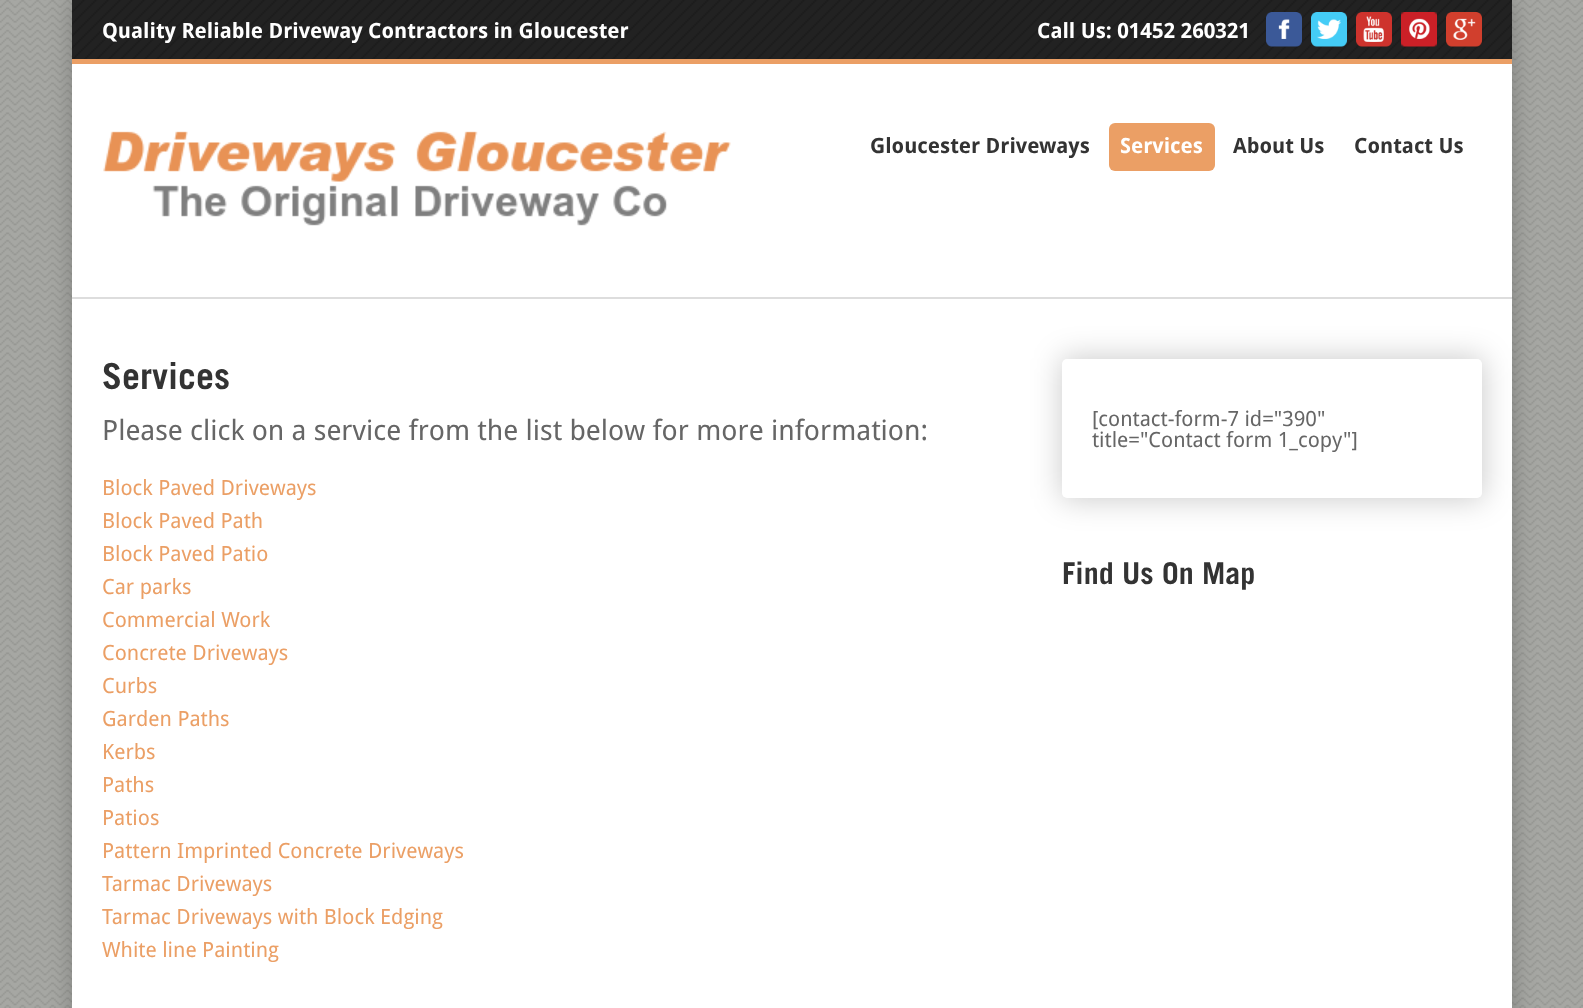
<!DOCTYPE html>
<meta charset="utf-8">
<style>body { margin: 0 } canvas { display: block }</style>
<canvas id="canvas" width="1583" height="1008"></canvas>
<img id="img1" src="img_01.png" hidden>
<img id="img2" src="img_02.png" hidden>
<img id="img3" src="img_03.png" hidden>
<img id="img4" src="img_04.png" hidden>
<img id="img5" src="img_05.png" hidden>
<img id="img6" src="img_06.png" hidden>
<img id="img7" src="img_07.png" hidden>
<img id="img8" src="img_08.png" hidden>
<script>
window.onload = function () {
	const canvas = document.getElementById("canvas");
	const ctx = canvas.getContext("2d");
	ctx.miterLimit = 4;
	ctx.fontKerning = "normal";
	function txt(s, x, y) {
		ctx.fillText(s, x, y);
	}
	function fill(x, y, w, h) {
		ctx.fillRect(x, y, w, h);
	}
	function round(x, y, w, h, r) {
		ctx.beginPath();
		ctx.roundRect(x, y, w, h, r);
		ctx.fill();
	}
	function img(id, x, y, w, h) {
		ctx.drawImage(document.getElementById(id), x, y, w, h);
	}

	ctx.fillStyle = "#FFFFFF";
	fill(0, 0, 1583, 1008);
	img("img1", 0, 0, 1583, 1008);
	ctx.fillStyle = "rgba(0, 0, 0, 0.2)";
	ctx.filter = "blur(11px)";
	ctx.beginPath();
	ctx.rect(71, -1, 1443, 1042);
	ctx.fill();
	ctx.filter = "none";
	ctx.fillStyle = "#FFFFFF";
	fill(72, 64, 1440, 944);
	img("img2", 72, 0, 1440, 59);
	ctx.fillStyle = "#EB9F65";
	fill(72, 59, 1440, 5);
	img("img3", 1266, 12, 36, 35);
	img("img4", 1311, 12, 36, 35);
	img("img5", 1356, 12, 36, 35);
	img("img6", 1401, 12, 36, 35);
	img("img7", 1446, 12, 36, 35);
	ctx.fillStyle = "#DDDDDD";
	fill(72, 297, 1440, 2);
	img("img8", 103, 131, 628, 95);
	ctx.fillStyle = "#EB9F65";
	round(1109, 123, 106, 48, 6);
	ctx.fillStyle = "rgba(0, 0, 0, 0.2)";
	ctx.filter = "blur(15px)";
	ctx.beginPath();
	ctx.roundRect(1061, 357, 423, 143, 6);
	ctx.fill();
	ctx.filter = "none";
	ctx.fillStyle = "#FFFFFF";
	round(1062, 359, 420, 139, 5);
	ctx.font = "bold 21px Droid Sans";
	txt("Quality Reliable Driveway Contractors in Gloucester", 102, 38);
	txt("Call Us: 01452 260321", 1037, 38);
	ctx.fillStyle = "#333333";
	txt("Gloucester Driveways", 870, 153);
	ctx.fillStyle = "#FFFFFF";
	txt("Services", 1120, 153);
	ctx.fillStyle = "#333333";
	txt("About Us", 1233, 153);
	txt("Contact Us", 1354, 153);
	ctx.font = "bold 36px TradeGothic";
	txt("Services", 102, 389);
	ctx.font = "28px Droid Sans";
	ctx.fillStyle = "#666666";
	txt("Please click on a service from the list below for more information:", 102, 440);
	ctx.font = "21px Droid Sans";
	ctx.fillStyle = "#EB9F65";
	txt("Block Paved Driveways", 102, 495);
	txt("Block Paved Path", 102, 528);
	txt("Block Paved Patio", 102, 561);
	txt("Car parks", 102, 594);
	txt("Commercial Work", 102, 627);
	txt("Concrete Driveways", 102, 660);
	txt("Curbs", 102, 693);
	txt("Garden Paths", 102, 726);
	txt("Kerbs", 102, 759);
	txt("Paths", 102, 792);
	txt("Patios", 102, 825);
	txt("Pattern Imprinted Concrete Driveways", 102, 858);
	txt("Tarmac Driveways", 102, 891);
	txt("Tarmac Driveways with Block Edging", 102, 924);
	txt("White line Painting", 102, 957);
	ctx.fillStyle = "#666666";
	txt("[contact-form-7 id=\"390\"", 1092, 426);
	txt("title=\"Contact form 1_copy\"]", 1092, 447);
	ctx.font = "bold 30px TradeGothic";
	ctx.fillStyle = "#333333";
	txt("Find Us On Map", 1062, 584);
};
</script>
